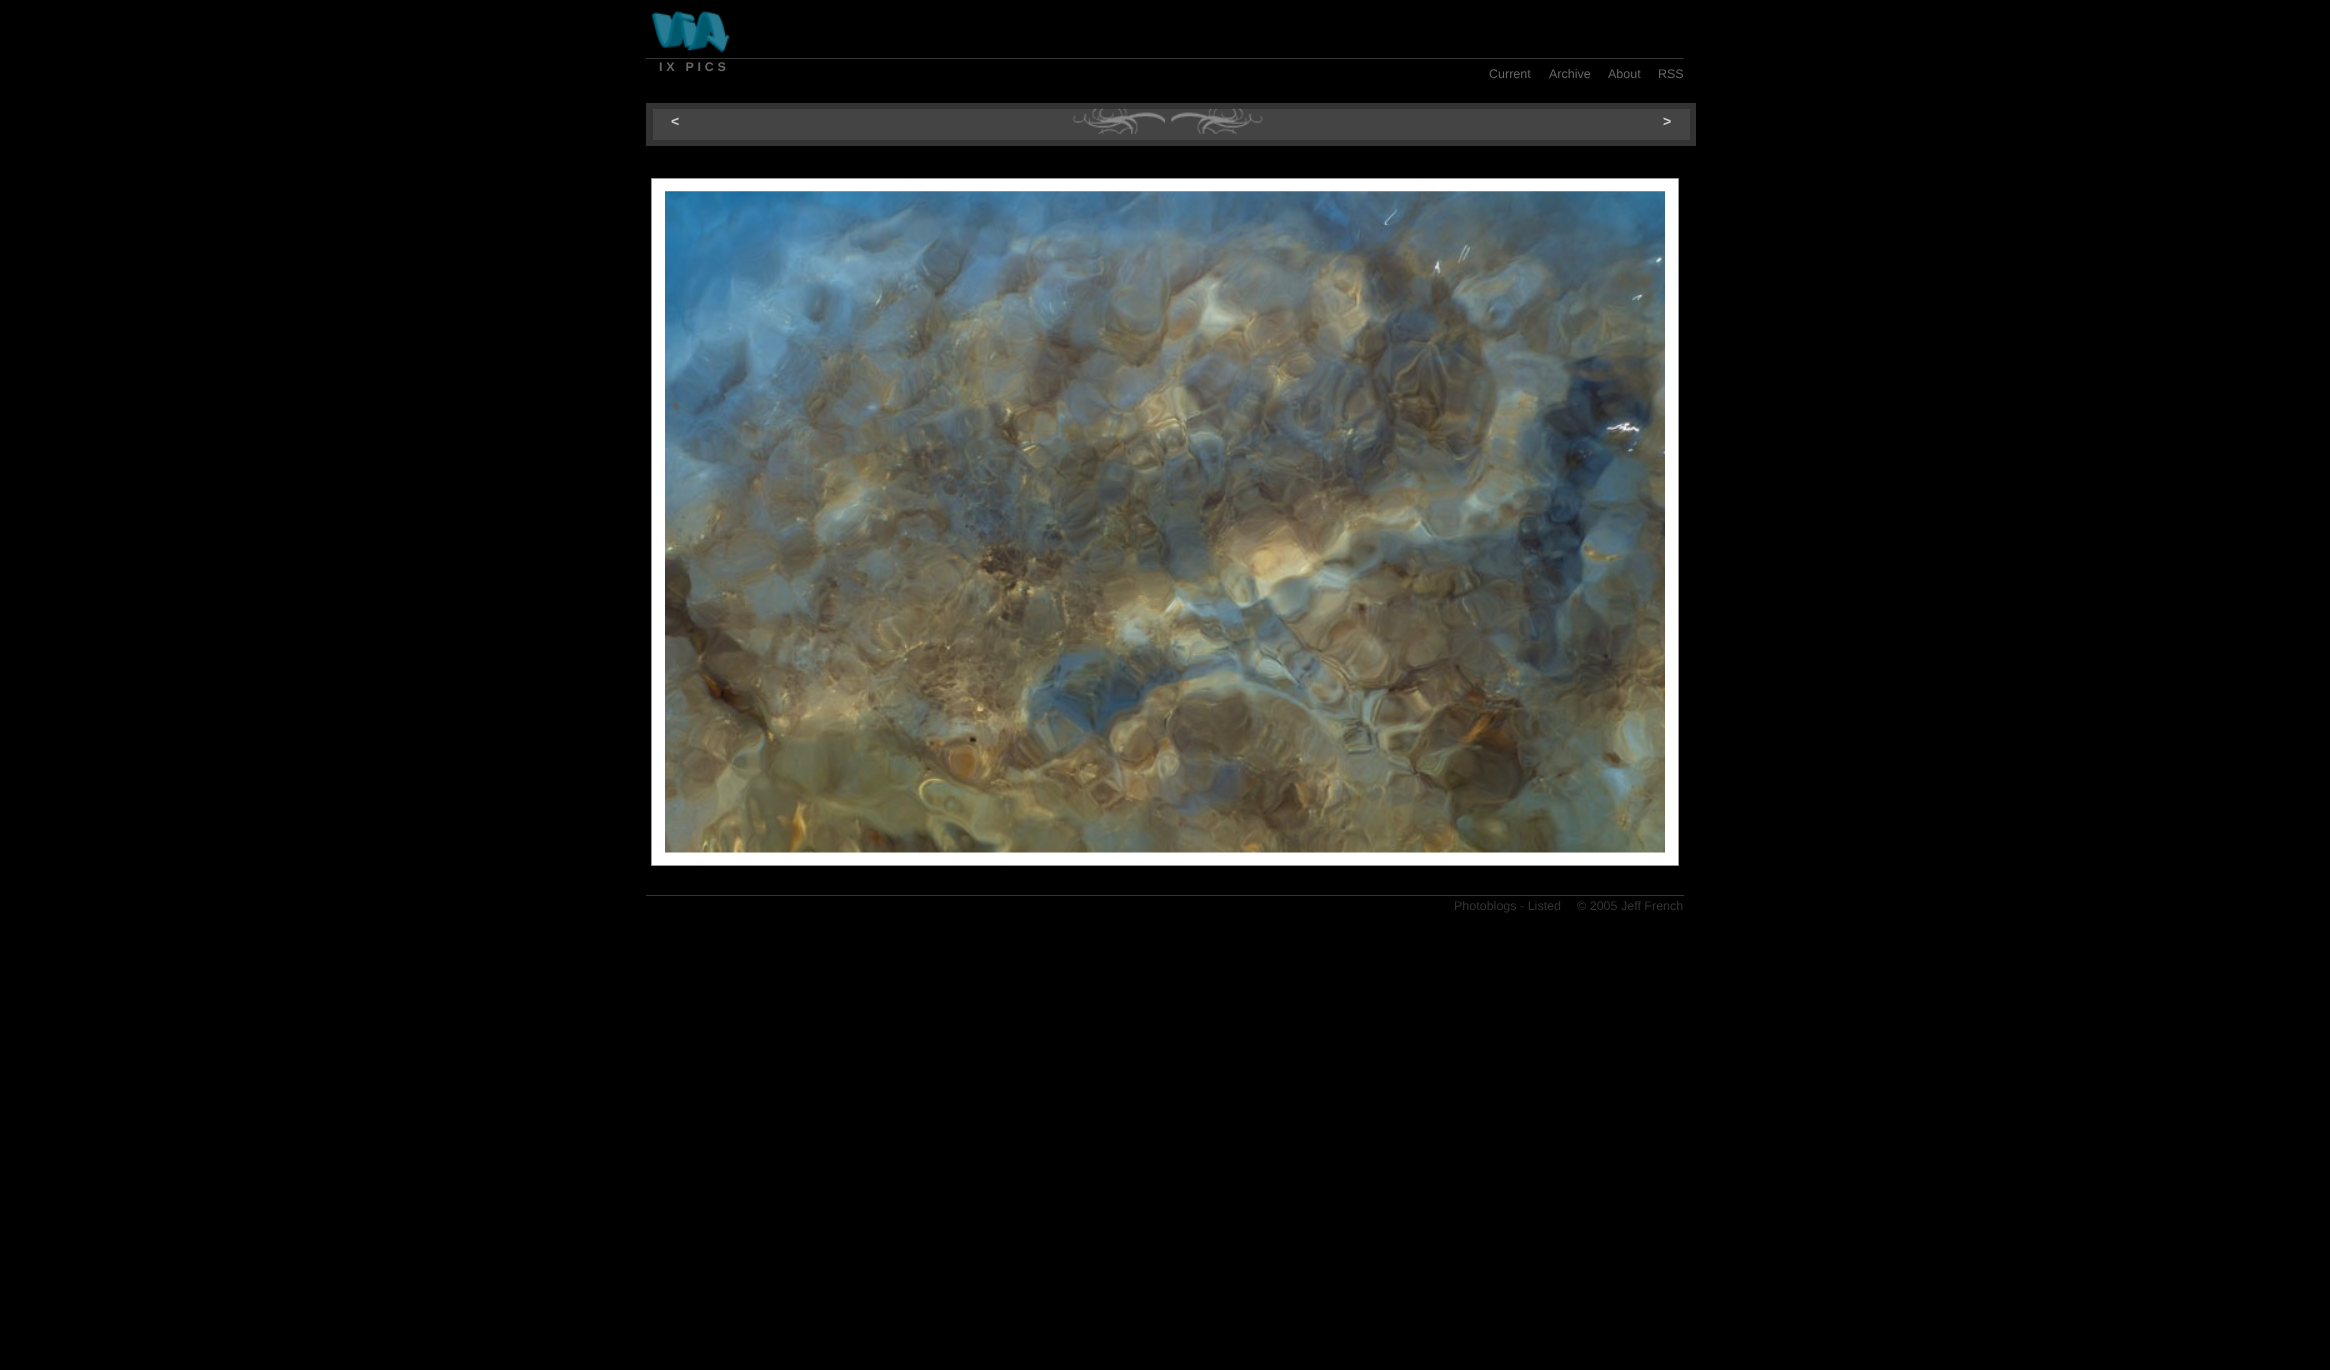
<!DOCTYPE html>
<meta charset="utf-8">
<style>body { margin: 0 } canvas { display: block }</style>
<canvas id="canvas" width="2330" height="1370"></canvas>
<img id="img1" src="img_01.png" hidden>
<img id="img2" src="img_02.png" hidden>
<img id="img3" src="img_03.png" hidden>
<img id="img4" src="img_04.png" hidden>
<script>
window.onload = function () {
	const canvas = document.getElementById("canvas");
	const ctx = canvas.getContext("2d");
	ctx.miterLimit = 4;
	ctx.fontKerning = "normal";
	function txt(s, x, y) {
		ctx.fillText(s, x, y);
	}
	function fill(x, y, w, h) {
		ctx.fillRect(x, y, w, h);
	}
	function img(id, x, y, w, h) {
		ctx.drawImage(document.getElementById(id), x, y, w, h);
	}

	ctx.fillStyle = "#000000";
	fill(0, 0, 2330, 1370);
	ctx.fillStyle = "#333333";
	fill(646, 58, 1038, 1);
	img("img1", 651, 11, 79, 42);
	fill(646, 103, 1050, 43);
	ctx.fillStyle = "#444444";
	fill(653, 109, 1037, 31);
	img("img2", 1072, 108, 93, 26);
	img("img3", 1171, 108, 92, 26);
	ctx.fillStyle = "#FFFFFF";
	ctx.beginPath();
	ctx.rect(651.5, 178.5, 1027, 687);
	ctx.fill();
	ctx.strokeStyle = "#999999";
	ctx.stroke();
	img("img4", 665, 191, 1000, 662);
	ctx.fillStyle = "#333333";
	fill(646, 895, 1038, 1);
	ctx.letterSpacing = "3.75px";
	ctx.font = "bold 12.5px Liberation Sans";
	ctx.fillStyle = "#666666";
	txt("IX PICS", 659, 71);
	ctx.letterSpacing = "0px";
	ctx.font = "12.5px Liberation Sans";
	txt("Current", 1489, 78);
	txt("Archive", 1549, 78);
	txt("About", 1608, 78);
	txt("RSS", 1658, 78);
	ctx.font = "bold 14px Liberation Sans";
	ctx.fillStyle = "#CCCCCC";
	txt("<", 671, 126);
	txt(">", 1663, 126);
	ctx.font = "12.5px Liberation Sans";
	ctx.fillStyle = "#333333";
	txt("Photoblogs - Listed", 1454, 910);
	txt("© 2005 Jeff French", 1577, 910);
};
</script>
